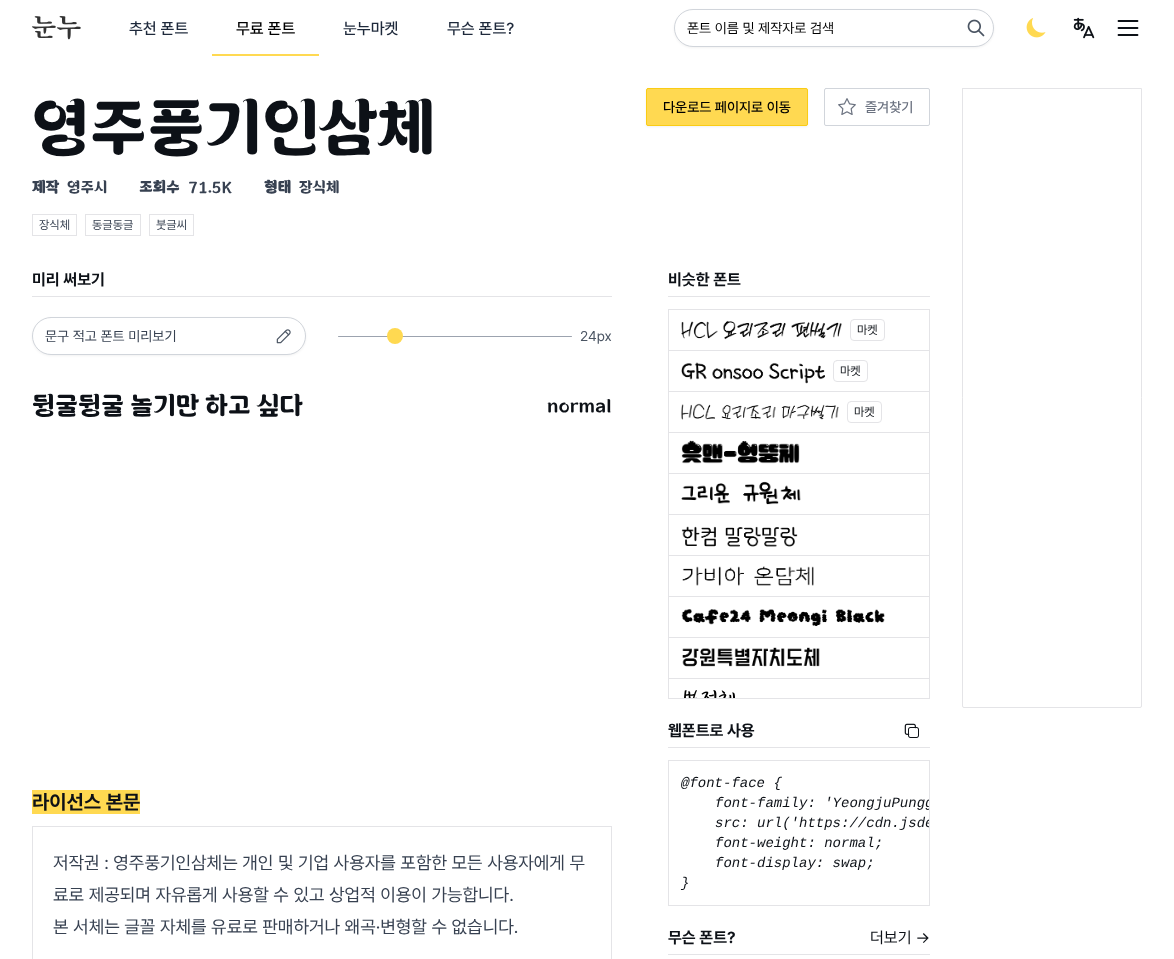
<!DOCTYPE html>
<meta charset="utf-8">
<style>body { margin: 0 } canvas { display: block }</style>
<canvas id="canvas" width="1174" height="959"></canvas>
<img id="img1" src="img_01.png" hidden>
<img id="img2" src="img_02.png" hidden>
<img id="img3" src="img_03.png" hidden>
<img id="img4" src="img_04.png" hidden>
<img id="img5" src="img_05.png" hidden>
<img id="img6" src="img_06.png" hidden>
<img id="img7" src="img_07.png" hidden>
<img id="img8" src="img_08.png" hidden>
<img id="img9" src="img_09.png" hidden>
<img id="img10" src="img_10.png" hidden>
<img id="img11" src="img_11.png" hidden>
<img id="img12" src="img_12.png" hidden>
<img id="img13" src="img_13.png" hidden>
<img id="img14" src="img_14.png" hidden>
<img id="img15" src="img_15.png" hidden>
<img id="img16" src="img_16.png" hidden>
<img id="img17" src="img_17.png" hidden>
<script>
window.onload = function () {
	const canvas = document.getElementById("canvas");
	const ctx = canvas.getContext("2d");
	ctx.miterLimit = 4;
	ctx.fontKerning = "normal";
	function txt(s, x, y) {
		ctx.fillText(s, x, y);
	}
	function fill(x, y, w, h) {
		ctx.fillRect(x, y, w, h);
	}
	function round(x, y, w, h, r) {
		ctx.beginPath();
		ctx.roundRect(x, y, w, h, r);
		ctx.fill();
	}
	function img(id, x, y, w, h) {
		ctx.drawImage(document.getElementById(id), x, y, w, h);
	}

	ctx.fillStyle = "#FFFFFF";
	fill(0, 0, 1174, 959);
	img("img1", 32, 16, 49, 24);
	ctx.fillStyle = "#FFD951";
	fill(212, 54, 107, 2);
	ctx.fillStyle = "rgba(0, 0, 0, 0.05)";
	ctx.filter = "blur(1px)";
	ctx.beginPath();
	ctx.roundRect(674, 10, 320, 38, 19);
	ctx.fill();
	ctx.filter = "none";
	ctx.fillStyle = "#FFFFFF";
	ctx.beginPath();
	ctx.roundRect(674.5, 9.5, 319, 37, 18.5);
	ctx.fill();
	ctx.strokeStyle = "#D1D5DB";
	ctx.stroke();
	img("img2", 967, 19, 18, 18);
	img("img3", 1026, 18, 20, 20);
	img("img4", 1073, 17, 22, 22);
	ctx.beginPath();
	ctx.moveTo(1118.5, 21);
	ctx.lineTo(1137.5, 21);
	ctx.moveTo(1118.5, 28);
	ctx.lineTo(1137.5, 28);
	ctx.moveTo(1118.5, 35);
	ctx.lineTo(1137.5, 35);
	ctx.strokeStyle = "#0D1117";
	ctx.lineWidth = 1.8;
	ctx.lineCap = "round";
	ctx.lineJoin = "round";
	ctx.stroke();
	ctx.strokeStyle = "#E4E4E7";
	ctx.lineWidth = 1;
	ctx.lineJoin = "miter";
	ctx.strokeRect(32.5, 214.5, 44, 21);
	ctx.strokeRect(85.5, 214.5, 55, 21);
	ctx.strokeRect(149.5, 214.5, 44, 21);
	ctx.fillStyle = "rgba(0, 0, 0, 0.05)";
	ctx.filter = "blur(1px)";
	ctx.beginPath();
	ctx.roundRect(646, 89, 162, 38, 2);
	ctx.fill();
	ctx.filter = "none";
	ctx.fillStyle = "#FFD951";
	ctx.beginPath();
	ctx.roundRect(646.5, 88.5, 161, 37, 1.5);
	ctx.fill();
	ctx.strokeStyle = "#FACC15";
	ctx.stroke();
	ctx.beginPath();
	ctx.roundRect(824.5, 88.5, 105, 37, 1.5);
	ctx.strokeStyle = "#D1D5DB";
	ctx.stroke();
	img("img5", 838, 98, 18, 17);
	ctx.fillStyle = "#E4E4E7";
	fill(32, 296, 580, 1);
	ctx.fillStyle = "rgba(0, 0, 0, 0.05)";
	ctx.filter = "blur(1px)";
	ctx.beginPath();
	ctx.roundRect(32, 318, 274, 38, 19);
	ctx.fill();
	ctx.filter = "none";
	ctx.fillStyle = "#FFFFFF";
	ctx.beginPath();
	ctx.roundRect(32.5, 317.5, 273, 37, 18.5);
	ctx.fill();
	ctx.stroke();
	img("img6", 276, 329, 15, 15);
	ctx.fillStyle = "#9CA3AF";
	round(338, 336, 234, 1, 0.5);
	ctx.fillStyle = "#FFD951";
	ctx.beginPath();
	ctx.arc(395, 336, 8, 0, Math.PI * 2);
	ctx.fill();
	fill(32, 790, 108, 24);
	ctx.strokeStyle = "#E4E4E7";
	ctx.strokeRect(32.5, 826.5, 579, 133);
	ctx.fillStyle = "#E4E4E7";
	fill(668, 296, 262, 1);
	ctx.strokeRect(668.5, 309.5, 261, 389);
	img("img7", 681, 320, 161, 20);
	ctx.beginPath();
	ctx.roundRect(850.5, 319.5, 34, 21, 3.5);
	ctx.stroke();
	fill(669, 350, 260, 1);
	img("img8", 681, 362, 144, 22);
	ctx.beginPath();
	ctx.roundRect(833.5, 360.5, 34, 21, 3.5);
	ctx.stroke();
	fill(669, 391, 260, 1);
	img("img9", 681, 403, 158, 17);
	ctx.beginPath();
	ctx.roundRect(847.5, 401.5, 34, 21, 3.5);
	ctx.stroke();
	fill(669, 432, 260, 1);
	img("img10", 681, 440, 119, 24);
	fill(669, 473, 260, 1);
	img("img11", 681, 481, 120, 24);
	fill(669, 514, 260, 1);
	img("img12", 681, 526, 117, 21);
	fill(669, 555, 260, 1);
	img("img13", 682, 566, 132, 20);
	fill(669, 596, 260, 1);
	img("img14", 681, 609, 204, 18);
	fill(669, 637, 260, 1);
	img("img15", 682, 647, 138, 20);
	fill(669, 678, 260, 1);
	img("img16", 684, 690, 51, 8);
	fill(668, 747, 262, 1);
	img("img17", 904, 723, 15, 15);
	ctx.strokeRect(668.5, 760.5, 261, 145);
	fill(668, 954, 262, 1);
	ctx.beginPath();
	ctx.roundRect(962.5, 88.5, 179, 619, [0, 0, 1.5, 1.5]);
	ctx.stroke();
	ctx.font = "500 16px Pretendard";
	ctx.fillStyle = "#1E293B";
	txt("추천 폰트", 129, 34);
	ctx.fillStyle = "#000000";
	txt("무료 폰트", 236, 34);
	ctx.fillStyle = "#1E293B";
	txt("눈누마켓", 343, 34);
	txt("무슨 폰트?", 447, 34);
	ctx.font = "14px Pretendard";
	ctx.fillStyle = "#000000";
	txt("폰트 이름 및 제작자로 검색", 687, 33);
	ctx.font = "60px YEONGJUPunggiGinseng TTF";
	ctx.fillStyle = "#0D1117";
	txt("영주풍기인삼체", 32, 149);
	ctx.font = "bold 14px YEONGJUPunggiGinseng TTF";
	ctx.fillStyle = "#374151";
	txt("제작", 32, 192);
	ctx.font = "14px YEONGJUPunggiGinseng TTF";
	txt("영주시", 67, 192);
	ctx.font = "bold 14px YEONGJUPunggiGinseng TTF";
	txt("조회수", 139, 192);
	ctx.font = "14px YEONGJUPunggiGinseng TTF";
	txt("71.5K", 188, 192);
	ctx.font = "bold 14px YEONGJUPunggiGinseng TTF";
	txt("형태", 264, 192);
	ctx.font = "14px YEONGJUPunggiGinseng TTF";
	txt("장식체", 299, 192);
	ctx.font = "12px Pretendard";
	txt("장식체", 39, 229);
	txt("동글동글", 92, 229);
	txt("붓글씨", 156, 229);
	ctx.font = "500 14px Pretendard";
	ctx.fillStyle = "#000000";
	txt("다운로드 페이지로 이동", 663, 112);
	ctx.fillStyle = "#6B7280";
	txt("즐겨찾기", 865, 112);
	ctx.font = "bold 16px Pretendard";
	ctx.fillStyle = "#0D1117";
	txt("미리 써보기", 32, 285);
	ctx.font = "14px Pretendard";
	ctx.fillStyle = "#374151";
	txt("문구 적고 폰트 미리보기", 45, 341);
	ctx.fillStyle = "#4B5563";
	txt("24px", 580, 341);
	ctx.font = "24px YEONGJUPunggiGinseng TTF";
	ctx.fillStyle = "#0D1117";
	txt("뒹굴뒹굴 놀기만 하고 싶다", 32, 414);
	ctx.font = "16px YEONGJUPunggiGinseng TTF";
	txt("normal", 547, 411);
	ctx.font = "bold 20px Pretendard";
	txt("라이선스 본문", 32, 809);
	ctx.font = "18px Pretendard";
	ctx.fillStyle = "#374151";
	txt("저작권 : 영주풍기인삼체는 개인 및 기업 사용자를 포함한 모든 사용자에게 무", 53, 869);
	txt("료로 제공되며 자유롭게 사용할 수 있고 상업적 이용이 가능합니다.", 53, 901);
	txt("본 서체는 글꼴 자체를 유료로 판매하거나 왜곡·변형할 수 없습니다.", 53, 933);
	ctx.font = "bold 16px Pretendard";
	ctx.fillStyle = "#0D1117";
	txt("비슷한 폰트", 668, 285);
	ctx.font = "12px Pretendard";
	txt("마켓", 857, 334);
	txt("마켓", 840, 375);
	txt("마켓", 854, 416);
	ctx.font = "bold 16px Pretendard";
	txt("웹폰트로 사용", 668, 736);
	ctx.font = "italic 14px Liberation Mono";
	txt("@font-face {", 681, 787);
	ctx.save();
	ctx.beginPath();
	ctx.rect(669, 761, 260, 144);
	ctx.clip();
	txt("font-family: 'YeongjuPungg", 715, 807);
	txt("src: url('https://cdn.jsde", 715, 827);
	ctx.restore();
	txt("font-weight: normal;", 715, 847);
	txt("font-display: swap;", 715, 867);
	txt("}", 681, 887);
	ctx.font = "bold 16px Pretendard";
	txt("무슨 폰트?", 668, 943);
	ctx.font = "16px Pretendard";
	txt("더보기 →", 870, 943);
};
</script>
